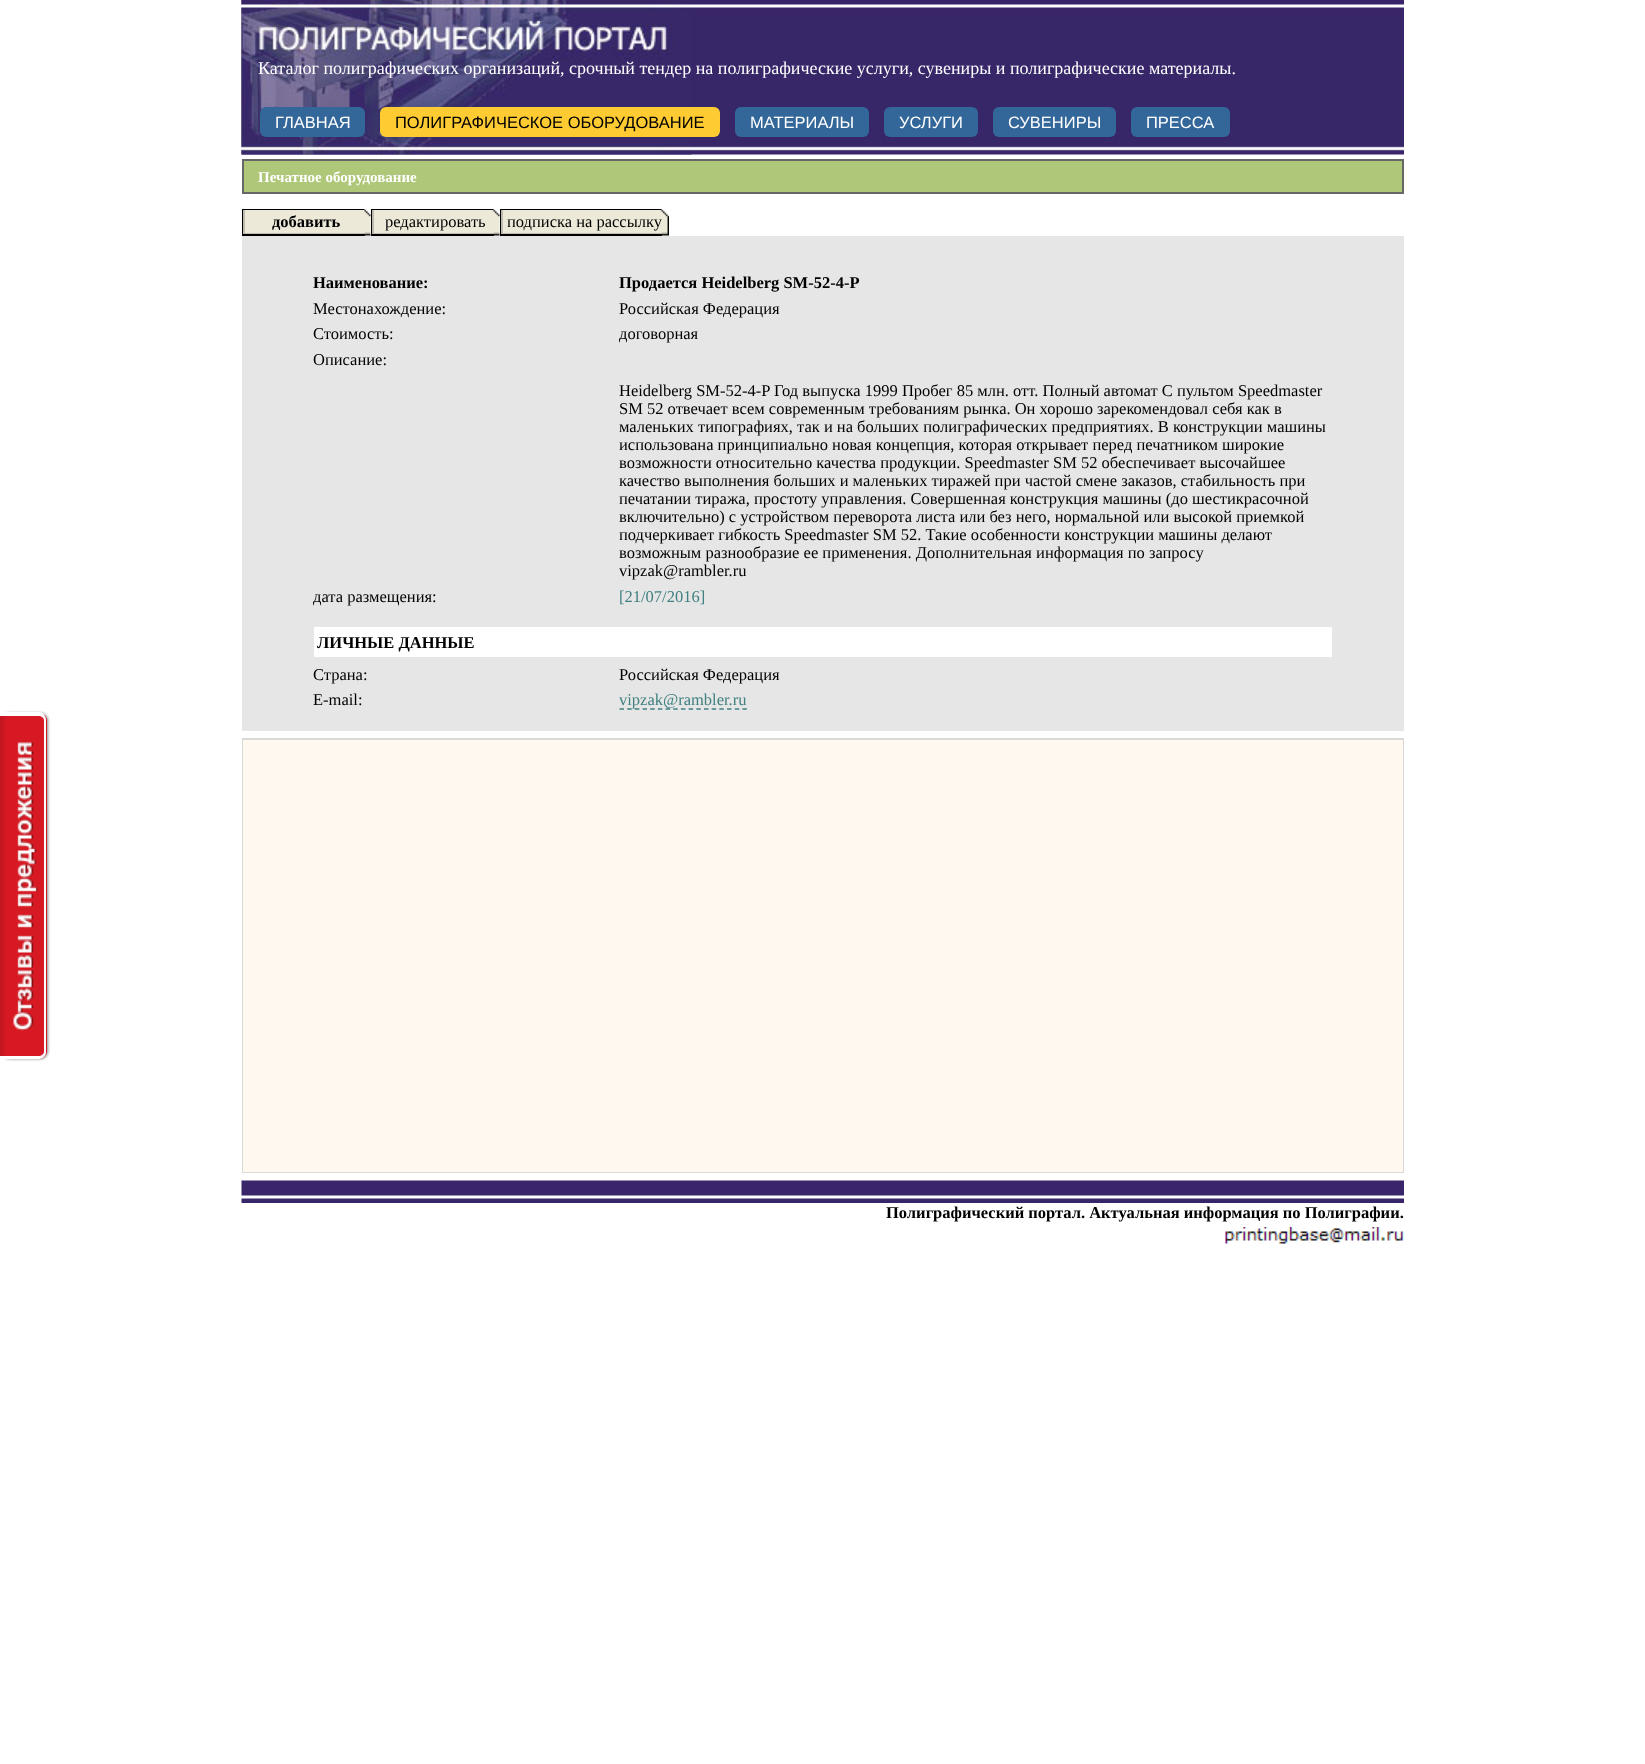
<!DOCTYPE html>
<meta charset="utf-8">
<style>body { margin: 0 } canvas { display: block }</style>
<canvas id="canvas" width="1645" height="1764"></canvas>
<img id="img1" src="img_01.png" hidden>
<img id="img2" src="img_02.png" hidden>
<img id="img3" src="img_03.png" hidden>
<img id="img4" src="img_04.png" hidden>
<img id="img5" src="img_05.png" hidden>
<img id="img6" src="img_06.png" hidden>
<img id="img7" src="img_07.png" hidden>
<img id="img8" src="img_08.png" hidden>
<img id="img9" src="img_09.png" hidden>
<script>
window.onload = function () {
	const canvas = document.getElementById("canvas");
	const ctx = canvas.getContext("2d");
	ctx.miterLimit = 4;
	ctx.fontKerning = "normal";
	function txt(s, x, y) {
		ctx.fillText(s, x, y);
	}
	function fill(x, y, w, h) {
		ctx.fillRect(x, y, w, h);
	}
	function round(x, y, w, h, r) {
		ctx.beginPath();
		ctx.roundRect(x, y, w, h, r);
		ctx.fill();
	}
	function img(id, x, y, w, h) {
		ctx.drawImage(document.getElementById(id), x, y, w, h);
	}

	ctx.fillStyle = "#FFFFFF";
	fill(0, 0, 1645, 1764);
	ctx.fillStyle = "#888888";
	ctx.filter = "blur(1.5px)";
	ctx.beginPath();
	ctx.roundRect(2, 713, 46, 346, 8);
	ctx.fill();
	ctx.filter = "none";
	ctx.fillStyle = "#D71923";
	ctx.beginPath();
	ctx.roundRect(0, 713, 47, 346, [0, 8, 8, 0]);
	ctx.fill();
	img("img1", 0, 716, 6, 340);
	ctx.fillStyle = "#FFFFFF";
	ctx.beginPath();
	ctx.moveTo(0, 712);
	ctx.lineTo(39, 712);
	ctx.bezierCurveTo(43, 712, 46, 716, 46, 720);
	ctx.lineTo(46, 1052);
	ctx.bezierCurveTo(46, 1056, 43, 1059, 39, 1059);
	ctx.lineTo(0, 1059);
	ctx.closePath();
	ctx.moveTo(0, 716);
	ctx.lineTo(39, 716);
	ctx.bezierCurveTo(41, 716, 44, 718, 44, 720);
	ctx.lineTo(44, 1052);
	ctx.bezierCurveTo(44, 1054, 41, 1056, 39, 1056);
	ctx.lineTo(0, 1056);
	ctx.closePath();
	ctx.fill("evenodd");
	img("img2", 13, 742, 25, 289);
	img("img3", 241, 0, 1163, 155);
	img("img4", 241, 0, 451, 155);
	ctx.fillStyle = "#336699";
	round(260, 107, 105, 30, 6);
	ctx.fillStyle = "#FFCB32";
	round(380, 107, 340, 30, 6);
	ctx.fillStyle = "#336699";
	round(735, 107, 134, 30, 6);
	round(884, 107, 94, 30, 6);
	round(993, 107, 123, 30, 6);
	round(1131, 107, 99, 30, 6);
	ctx.fillStyle = "#AFC779";
	ctx.beginPath();
	ctx.rect(243, 160, 1160, 33);
	ctx.fill();
	ctx.strokeStyle = "#676767";
	ctx.lineWidth = 2;
	ctx.stroke();
	ctx.fillStyle = "#000000";
	fill(242, 209, 1, 27);
	fill(243, 209, 122, 1);
	ctx.fillStyle = "#ECE9D8";
	fill(245, 210, 120, 23);
	ctx.fillStyle = "#BEBBAE";
	fill(245, 233, 120, 1);
	ctx.fillStyle = "#000000";
	fill(243, 234, 122, 2);
	img("img5", 364, 209, 7, 27);
	ctx.fillStyle = "#BEBBAE";
	fill(243, 210, 2, 24);
	ctx.fillStyle = "#000000";
	fill(371, 209, 1, 27);
	fill(372, 209, 122, 1);
	ctx.fillStyle = "#ECE9D8";
	fill(374, 210, 120, 23);
	ctx.fillStyle = "#BEBBAE";
	fill(374, 233, 120, 1);
	ctx.fillStyle = "#000000";
	fill(372, 234, 122, 2);
	img("img6", 493, 209, 7, 27);
	ctx.fillStyle = "#BEBBAE";
	fill(372, 210, 2, 24);
	ctx.fillStyle = "#000000";
	fill(500, 209, 1, 27);
	fill(501, 209, 161, 1);
	ctx.fillStyle = "#ECE9D8";
	fill(503, 210, 159, 23);
	ctx.fillStyle = "#BEBBAE";
	fill(503, 233, 159, 1);
	ctx.fillStyle = "#000000";
	fill(501, 234, 161, 2);
	img("img7", 661, 209, 8, 27);
	ctx.fillStyle = "#BEBBAE";
	fill(501, 210, 2, 24);
	ctx.fillStyle = "#E6E6E6";
	fill(242, 236, 1162, 495);
	ctx.fillStyle = "#FFFFFF";
	fill(314, 627, 1018, 30);
	ctx.beginPath();
	ctx.moveTo(619.5, 709);
	ctx.lineTo(747, 709);
	ctx.strokeStyle = "#408080";
	ctx.lineWidth = 1.5;
	ctx.setLineDash([4.5, 3.18]);
	ctx.stroke();
	ctx.strokeStyle = "#D8D8D8";
	ctx.lineWidth = 2;
	ctx.setLineDash([]);
	ctx.strokeRect(243, 739, 1160, 433);
	ctx.fillStyle = "#FFF9F0";
	fill(243, 740, 1160, 432);
	img("img8", 241, 1180, 1163, 23);
	img("img9", 1225, 1227, 179, 17);
	ctx.font = "18px Liberation Serif";
	ctx.fillStyle = "#FFFFFF";
	txt("Каталог полиграфических организаций, срочный тендер на полиграфические услуги, сувениры и полиграфические материалы.", 258, 74);
	ctx.font = "16.5px Liberation Sans";
	txt("ГЛАВНАЯ", 275, 128);
	ctx.fillStyle = "#000000";
	txt("ПОЛИГРАФИЧЕСКОЕ ОБОРУДОВАНИЕ", 395, 128);
	ctx.fillStyle = "#FFFFFF";
	txt("МАТЕРИАЛЫ", 750, 128);
	txt("УСЛУГИ", 899, 128);
	txt("СУВЕНИРЫ", 1008, 128);
	txt("ПРЕССА", 1146, 128);
	ctx.font = "bold 15px Liberation Serif";
	txt("Печатное оборудование", 258, 182);
	ctx.font = "bold 16.5px Liberation Serif";
	ctx.fillStyle = "#000000";
	txt("добавить", 272, 227);
	ctx.font = "16.5px Liberation Serif";
	txt("редактировать", 385, 227);
	txt("подписка на рассылку", 507, 227);
	ctx.font = "bold 16.5px Liberation Serif";
	txt("Наименование:", 313, 288);
	txt("Продается Heidelberg SM-52-4-P", 619, 288);
	ctx.font = "16.5px Liberation Serif";
	txt("Местонахождение:", 313, 314);
	txt("Российская Федерация", 619, 314);
	txt("Стоимость:", 313, 339);
	txt("договорная", 619, 339);
	txt("Описание:", 313, 365);
	txt("Heidelberg SM-52-4-P Год выпуска 1999 Пробег 85 млн. отт. Полный автомат С пультом Speedmaster", 619, 396);
	txt("SM 52 отвечает всем современным требованиям рынка. Он хорошо зарекомендовал себя как в", 619, 414);
	txt("маленьких типографиях, так и на больших полиграфических предприятиях. В конструкции машины", 619, 432);
	txt("использована принципиально новая концепция, которая открывает перед печатником широкие", 619, 450);
	txt("возможности относительно качества продукции. Speedmaster SM 52 обеспечивает высочайшее", 619, 468);
	txt("качество выполнения больших и маленьких тиражей при частой смене заказов, стабильность при", 619, 486);
	txt("печатании тиража, простоту управления. Совершенная конструкция машины (до шестикрасочной", 619, 504);
	txt("включительно) с устройством переворота листа или без него, нормальной или высокой приемкой", 619, 522);
	txt("подчеркивает гибкость Speedmaster SM 52. Такие особенности конструкции машины делают", 619, 540);
	txt("возможным разнообразие ее применения. Дополнительная информация по запросу", 619, 558);
	txt("vipzak@rambler.ru", 619, 576);
	txt("дата размещения:", 313, 602);
	ctx.fillStyle = "#408080";
	txt("[21/07/2016]", 619, 602);
	ctx.font = "bold 16.5px Liberation Serif";
	ctx.fillStyle = "#000000";
	txt("ЛИЧНЫЕ ДАННЫЕ", 317, 648);
	ctx.font = "16.5px Liberation Serif";
	txt("Страна:", 313, 680);
	txt("Российская Федерация", 619, 680);
	txt("E-mail:", 313, 705);
	ctx.fillStyle = "#408080";
	txt("vipzak@rambler.ru", 619, 705);
	ctx.font = "bold 16.5px Liberation Serif";
	ctx.fillStyle = "#000000";
	txt("Полиграфический портал. Актуальная информация по Полиграфии.", 886, 1218);
};
</script>
